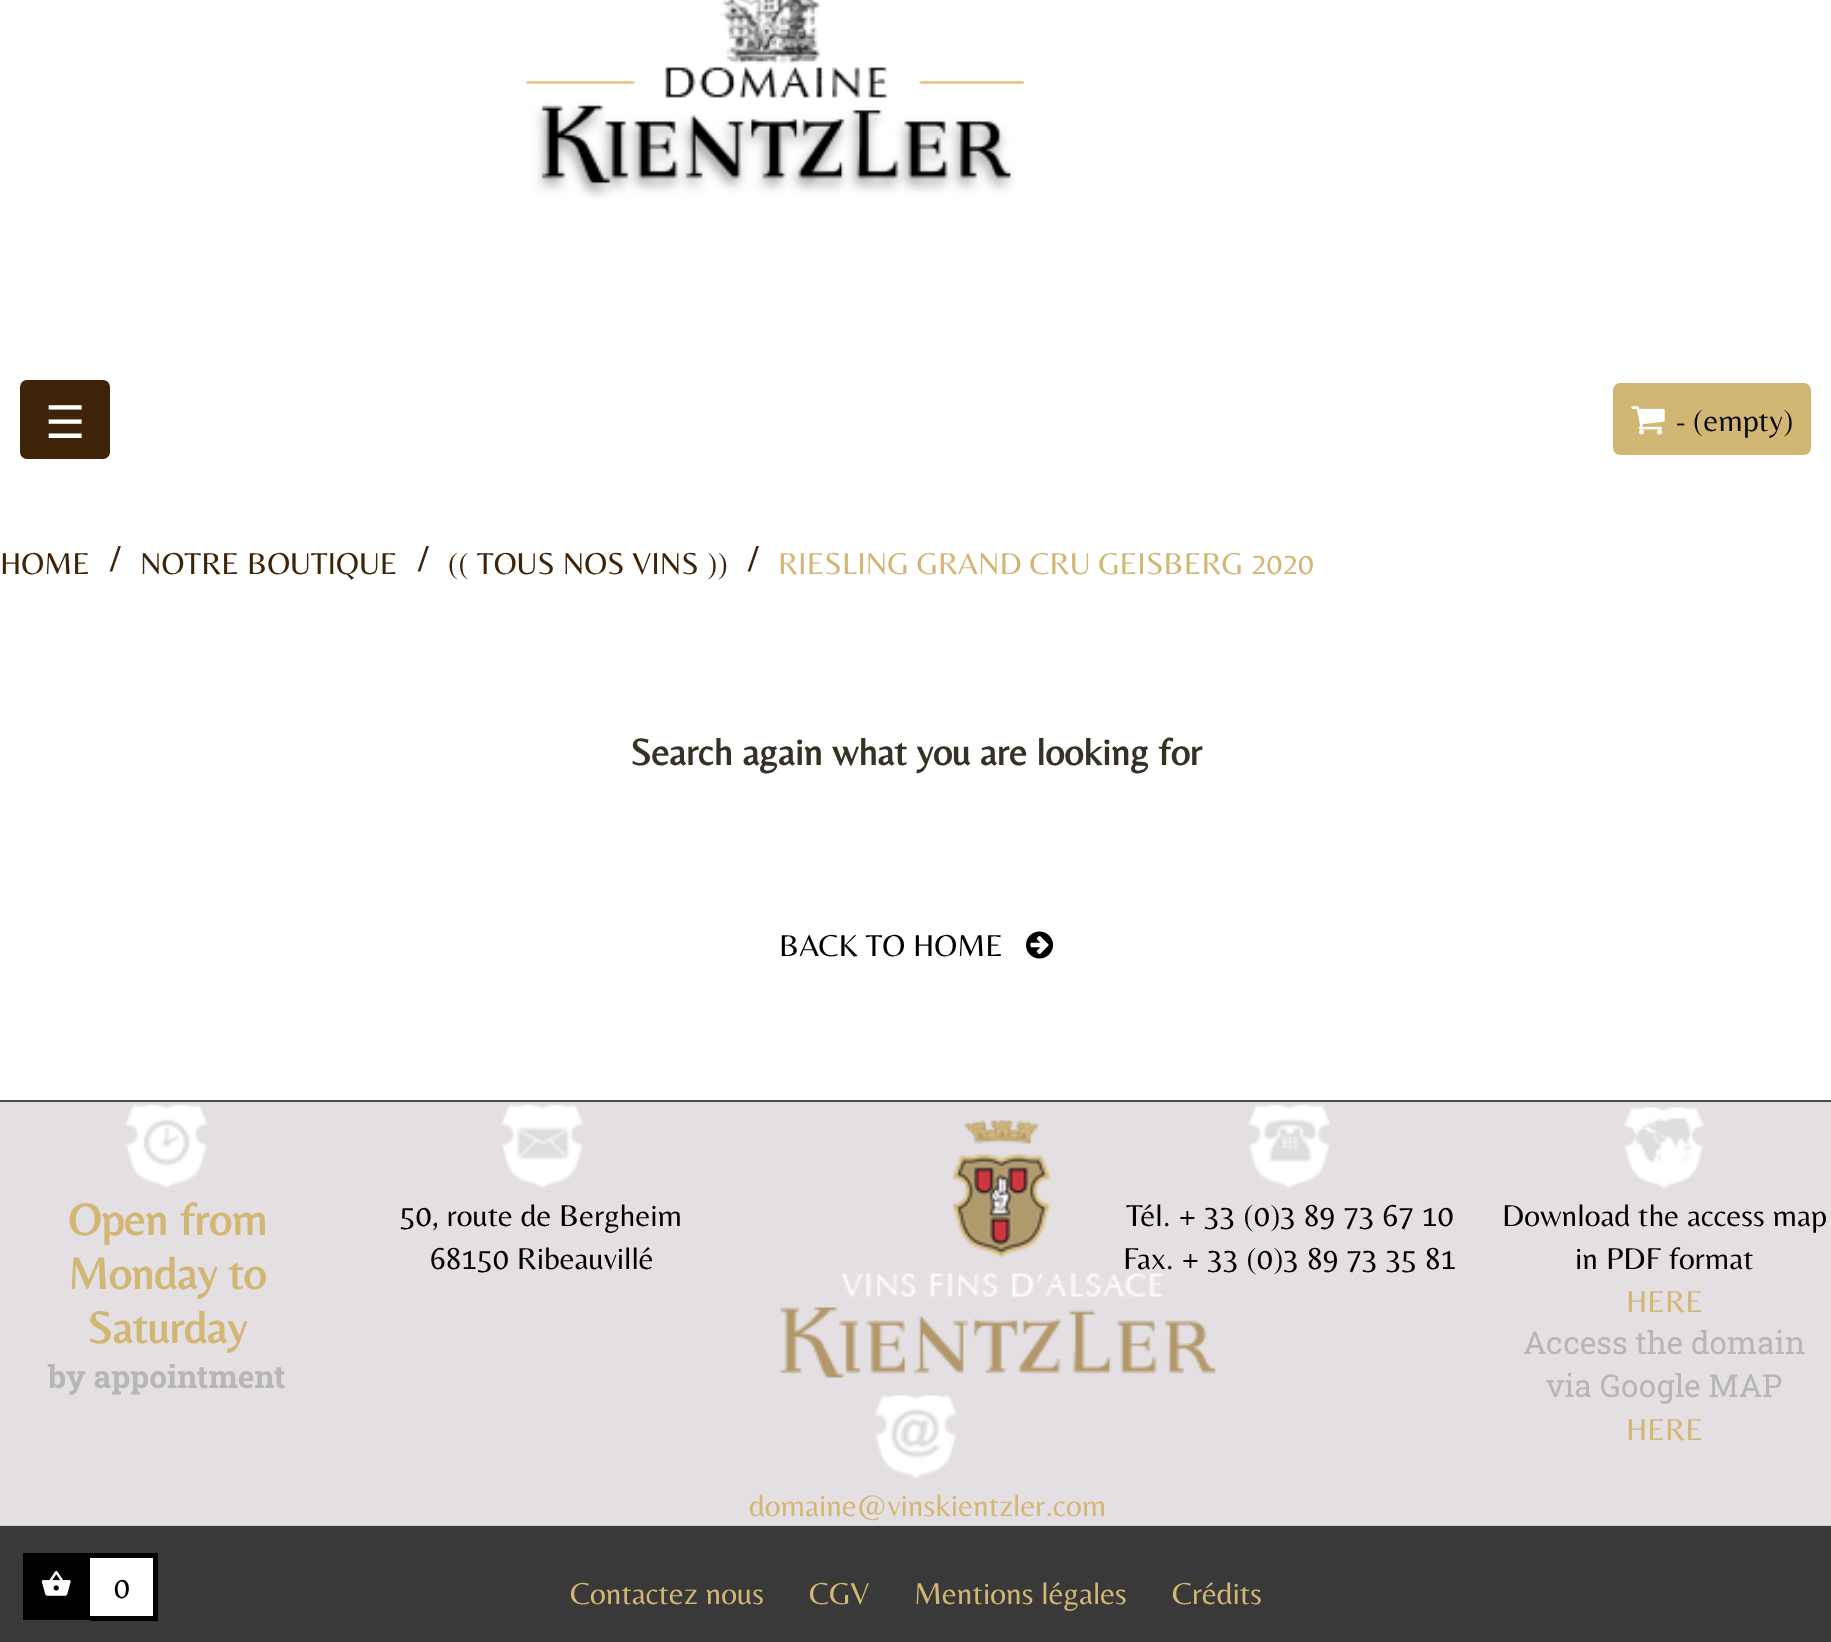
<!DOCTYPE html>
<meta charset="utf-8">
<style>body { margin: 0 } canvas { display: block }</style>
<canvas id="canvas" width="1831" height="1642"></canvas>
<img id="img1" src="img_01.png" hidden>
<img id="img2" src="img_02.png" hidden>
<img id="img3" src="img_03.png" hidden>
<img id="img4" src="img_04.png" hidden>
<img id="img5" src="img_05.png" hidden>
<img id="img6" src="img_06.png" hidden>
<img id="img7" src="img_07.png" hidden>
<img id="img8" src="img_08.png" hidden>
<img id="img9" src="img_09.png" hidden>
<img id="img10" src="img_10.png" hidden>
<img id="img11" src="img_11.png" hidden>
<script>
window.onload = function () {
	const canvas = document.getElementById("canvas");
	const ctx = canvas.getContext("2d");
	ctx.miterLimit = 4;
	ctx.fontKerning = "normal";
	function txt(s, x, y) {
		ctx.fillText(s, x, y);
	}
	function fill(x, y, w, h) {
		ctx.fillRect(x, y, w, h);
	}
	function round(x, y, w, h, r) {
		ctx.beginPath();
		ctx.roundRect(x, y, w, h, r);
		ctx.fill();
	}
	function img(id, x, y, w, h) {
		ctx.drawImage(document.getElementById(id), x, y, w, h);
	}

	ctx.fillStyle = "#FFFFFF";
	fill(0, 0, 1831, 1642);
	img("img1", 526, 0, 499, 200);
	ctx.fillStyle = "#3E2308";
	round(20, 380, 90, 79, 7);
	ctx.fillStyle = "#D2B774";
	round(1613, 383, 198, 72, 7);
	img("img2", 1631, 406, 34, 29);
	img("img3", 1026, 931, 27, 28);
	ctx.fillStyle = "#E3DFE3";
	fill(0, 1102, 1831, 424);
	ctx.fillStyle = "#4C4C4C";
	fill(0, 1100, 1831, 2);
	img("img4", 125, 1104, 83, 85);
	img("img5", 501, 1104, 83, 85);
	img("img6", 1248, 1104, 82, 85);
	img("img7", 1624, 1107, 80, 82);
	img("img8", 780, 1120, 436, 258);
	img("img9", 875, 1395, 82, 84);
	fill(0, 1526, 1831, 116);
	img("img10", 0, 1525, 1831, 117);
	ctx.fillStyle = "#000000";
	fill(23, 1553, 135, 67);
	img("img11", 41, 1570, 30, 26);
	ctx.fillStyle = "#FFFFFF";
	fill(90, 1558, 63, 58);
	ctx.fillStyle = "#000000";
	fill(90, 1620, 68, 1);
	ctx.font = "45px DejaVu Sans";
	ctx.fillStyle = "#FFFFFF";
	txt("☰", 45, 438);
	ctx.font = "29px Belleza";
	ctx.fillStyle = "#0A0A0A";
	txt("-", 1676, 431);
	ctx.font = "31.5px Belleza";
	txt("(empty)", 1693, 431);
	ctx.fillStyle = "#3E2308";
	txt("HOME", 0, 574);
	ctx.font = "bold 38px Liberation Serif";
	txt("/", 110, 571);
	ctx.font = "31.5px Belleza";
	txt("NOTRE BOUTIQUE", 140, 574);
	ctx.font = "bold 38px Liberation Serif";
	txt("/", 418, 571);
	ctx.font = "31.5px Belleza";
	txt("(( TOUS NOS VINS ))", 448, 574);
	ctx.font = "bold 38px Liberation Serif";
	txt("/", 748, 571);
	ctx.font = "31.5px Belleza";
	ctx.fillStyle = "#D2B774";
	txt("RIESLING GRAND CRU GEISBERG 2020", 778, 574);
	ctx.font = "bold 38.1px Belleza";
	ctx.fillStyle = "#363126";
	txt("Search again what you are looking for", 630, 765);
	ctx.font = "31.5px Belleza";
	ctx.fillStyle = "#000000";
	txt("BACK TO HOME", 779, 956);
	ctx.font = "bold 45.5px Belleza";
	ctx.fillStyle = "#D2B774";
	txt("Open from", 68, 1235);
	txt("Monday to", 68, 1289);
	txt("Saturday", 87, 1343);
	ctx.font = "bold 31.5px Roboto Slab";
	ctx.fillStyle = "#B6B6B6";
	txt("by appointment", 48, 1388);
	ctx.font = "31.5px Belleza";
	ctx.fillStyle = "#000000";
	txt("50, route de Bergheim", 400, 1226);
	txt("68150 Ribeauvillé", 430, 1269);
	txt("Tél. + 33 (0)3 89 73 67 10", 1126, 1226);
	txt("Fax. + 33 (0)3 89 73 35 81", 1123, 1269);
	txt("Download the access map", 1502, 1226);
	txt("in PDF format", 1575, 1269);
	ctx.fillStyle = "#D2B774";
	txt("HERE", 1626, 1312);
	ctx.font = "31.5px Roboto Slab";
	ctx.fillStyle = "#B6B6B6";
	txt("Access the domain", 1523, 1354);
	txt("via Google MAP", 1546, 1397);
	ctx.font = "31.5px Belleza";
	ctx.fillStyle = "#D2B774";
	txt("HERE", 1626, 1440);
	txt("domaine@vinskientzler.com", 749, 1516);
	txt("Contactez nous", 570, 1604);
	txt("CGV", 809, 1604);
	txt("Mentions légales", 914, 1604);
	txt("Crédits", 1172, 1604);
	ctx.fillStyle = "#000000";
	txt("0", 114, 1598);
};
</script>
